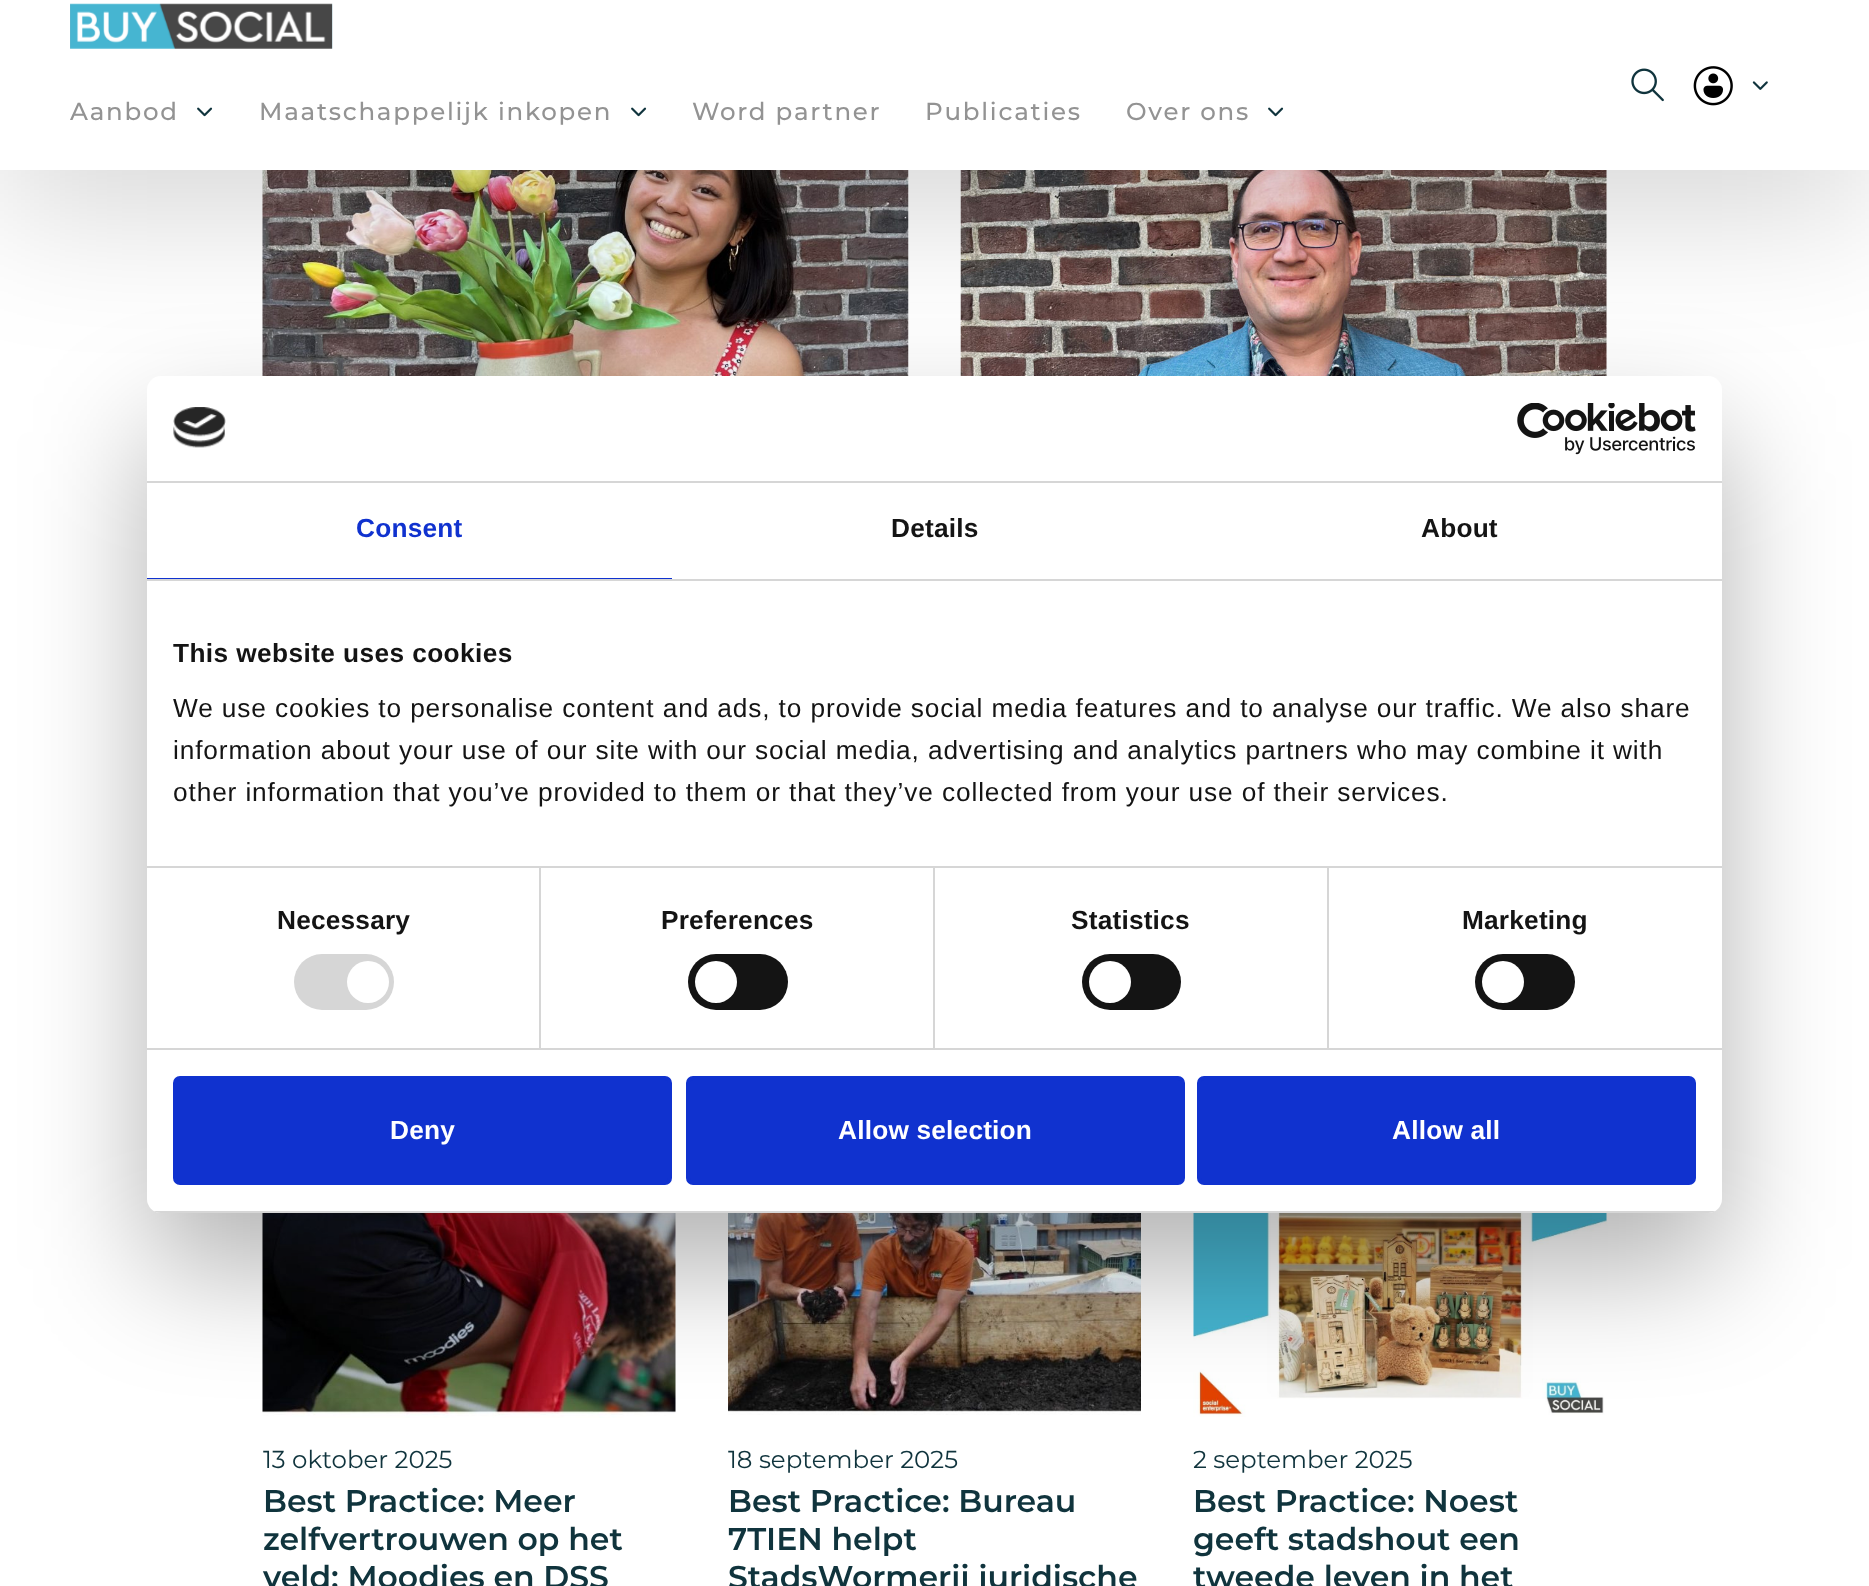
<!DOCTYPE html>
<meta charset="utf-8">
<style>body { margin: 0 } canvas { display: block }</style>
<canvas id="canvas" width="1869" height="1586"></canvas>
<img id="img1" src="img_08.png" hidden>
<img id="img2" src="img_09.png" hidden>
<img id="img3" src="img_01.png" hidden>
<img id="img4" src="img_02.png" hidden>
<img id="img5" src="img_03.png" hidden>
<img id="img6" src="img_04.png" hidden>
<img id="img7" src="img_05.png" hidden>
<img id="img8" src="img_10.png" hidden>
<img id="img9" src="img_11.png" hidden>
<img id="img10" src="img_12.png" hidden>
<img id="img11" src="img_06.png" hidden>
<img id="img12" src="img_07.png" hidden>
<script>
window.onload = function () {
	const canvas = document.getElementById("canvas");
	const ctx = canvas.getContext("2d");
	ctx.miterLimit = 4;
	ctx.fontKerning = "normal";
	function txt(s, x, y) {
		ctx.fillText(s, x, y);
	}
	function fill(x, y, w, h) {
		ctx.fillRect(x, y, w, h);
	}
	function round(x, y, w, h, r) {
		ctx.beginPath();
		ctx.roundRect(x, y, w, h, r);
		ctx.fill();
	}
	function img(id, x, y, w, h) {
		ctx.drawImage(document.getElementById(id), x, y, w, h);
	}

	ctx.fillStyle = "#FFFFFF";
	fill(0, 0, 1869, 1586);
	img("img1", 262, 170, 647, 206);
	img("img2", 960, 170, 647, 206);
	ctx.fillStyle = "rgba(0, 0, 0, 0.17)";
	ctx.filter = "blur(72px)";
	ctx.beginPath();
	ctx.rect(0, 37, 1869, 170);
	ctx.fill();
	ctx.filter = "none";
	ctx.fillStyle = "#FFFFFF";
	fill(0, 0, 1869, 170);
	img("img3", 1631, 68, 33, 34);
	img("img4", 1693, 66, 40, 40);
	img("img5", 1752, 81, 16, 9);
	img("img6", 70, 3, 263, 46);
	img("img7", 197, 107, 16, 10);
	img("img7", 631, 107, 16, 10);
	img("img7", 1268, 107, 16, 10);
	img("img8", 262, 1213, 414, 205);
	img("img9", 728, 1213, 413, 202);
	img("img10", 1193, 1213, 414, 204);
	ctx.fillStyle = "rgba(0, 0, 0, 0.3)";
	ctx.filter = "blur(59.5px)";
	ctx.beginPath();
	ctx.roundRect(147, 432, 1575, 837, 14);
	ctx.fill();
	ctx.filter = "none";
	ctx.fillStyle = "#FFFFFF";
	round(147, 376, 1575, 837, 14);
	ctx.fillStyle = "#D6D6D6";
	fill(147, 481, 1575, 2);
	img("img11", 173, 407, 53, 41);
	img("img12", 1517, 403, 179, 52);
	fill(147, 579, 1575, 2);
	ctx.fillStyle = "#1032CF";
	fill(147, 578, 525, 1);
	ctx.fillStyle = "#D6D6D6";
	fill(147, 866, 1575, 2);
	fill(147, 1048, 1575, 2);
	fill(539, 868, 2, 180);
	round(294, 954, 100, 56, 28);
	ctx.fillStyle = "#FFFFFF";
	ctx.beginPath();
	ctx.arc(368, 982, 21, 0, Math.PI * 2);
	ctx.fill();
	ctx.fillStyle = "#D6D6D6";
	fill(933, 868, 2, 180);
	ctx.fillStyle = "#141414";
	round(688, 954, 100, 56, 28);
	ctx.fillStyle = "#FFFFFF";
	ctx.beginPath();
	ctx.arc(716, 982, 21, 0, Math.PI * 2);
	ctx.fill();
	ctx.fillStyle = "#D6D6D6";
	fill(1327, 868, 2, 180);
	ctx.fillStyle = "#141414";
	round(1082, 954, 99, 56, 28);
	ctx.fillStyle = "#FFFFFF";
	ctx.beginPath();
	ctx.arc(1110, 982, 21, 0, Math.PI * 2);
	ctx.fill();
	ctx.fillStyle = "#141414";
	round(1475, 954, 100, 56, 28);
	ctx.fillStyle = "#FFFFFF";
	ctx.beginPath();
	ctx.arc(1503, 982, 21, 0, Math.PI * 2);
	ctx.fill();
	ctx.save();
	ctx.beginPath();
	ctx.roundRect(147, 376, 1575, 837, 14);
	ctx.clip();
	ctx.fillStyle = "#D6D6D6";
	fill(147, 1211, 1575, 2);
	ctx.restore();
	ctx.fillStyle = "#1032CF";
	ctx.beginPath();
	ctx.roundRect(175, 1078, 495, 105, 5);
	ctx.fill();
	ctx.strokeStyle = "#1032CF";
	ctx.lineWidth = 4;
	ctx.stroke();
	ctx.beginPath();
	ctx.roundRect(688, 1078, 495, 105, 5);
	ctx.fill();
	ctx.stroke();
	ctx.beginPath();
	ctx.roundRect(1199, 1078, 495, 105, 5);
	ctx.fill();
	ctx.stroke();
	ctx.letterSpacing = "1.75px";
	ctx.font = "500 24.5px Montserrat";
	ctx.fillStyle = "#939393";
	txt("Aanbod", 70, 120);
	txt("Maatschappelijk inkopen", 259, 120);
	txt("Word partner", 692, 120);
	txt("Publicaties", 925, 120);
	txt("Over ons", 1126, 120);
	ctx.letterSpacing = "0.2px";
	ctx.font = "bold 26.25px Liberation Sans";
	ctx.fillStyle = "#1032CF";
	txt("Consent", 356, 537);
	ctx.fillStyle = "#141414";
	txt("Details", 891, 537);
	txt("About", 1421, 537);
	ctx.letterSpacing = "0.4px";
	txt("This website uses cookies", 173, 662);
	ctx.letterSpacing = "0.88px";
	ctx.font = "26.25px Liberation Sans";
	txt("We use cookies to personalise content and ads, to provide social media features and to analyse our traffic. We also share", 173, 717);
	txt("information about your use of our site with our social media, advertising and analytics partners who may combine it with", 173, 759);
	txt("other information that you’ve provided to them or that they’ve collected from your use of their services.", 173, 801);
	ctx.letterSpacing = "0.2px";
	ctx.font = "bold 26.25px Liberation Sans";
	txt("Necessary", 277, 929);
	txt("Preferences", 661, 929);
	txt("Statistics", 1071, 929);
	txt("Marketing", 1462, 929);
	ctx.fillStyle = "#FFFFFF";
	txt("Deny", 390, 1139);
	txt("Allow selection", 838, 1139);
	txt("Allow all", 1392, 1139);
	ctx.letterSpacing = "0px";
	ctx.font = "24.5px Montserrat";
	ctx.fillStyle = "#10343D";
	txt("13 oktober 2025", 263, 1468);
	ctx.font = "600 31.5px Montserrat";
	txt("Best Practice: Meer", 263, 1512);
	txt("zelfvertrouwen op het", 263, 1550);
	txt("veld: Moodies en DSS", 263, 1588);
	ctx.font = "24.5px Montserrat";
	txt("18 september 2025", 728, 1468);
	ctx.font = "600 31.5px Montserrat";
	txt("Best Practice: Bureau", 728, 1512);
	txt("7TIEN helpt", 728, 1550);
	txt("StadsWormerij juridische", 728, 1588);
	ctx.font = "24.5px Montserrat";
	txt("2 september 2025", 1193, 1468);
	ctx.font = "600 31.5px Montserrat";
	txt("Best Practice: Noest", 1193, 1512);
	txt("geeft stadshout een", 1193, 1550);
	txt("tweede leven in het", 1193, 1588);
};
</script>
